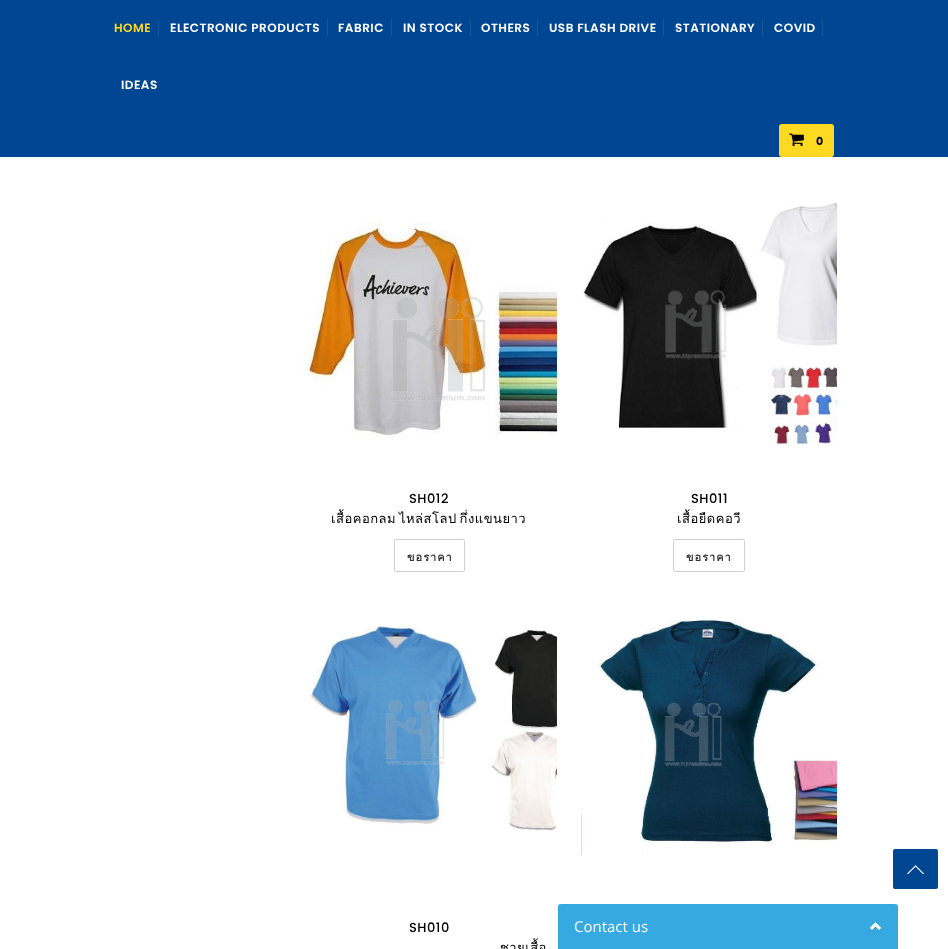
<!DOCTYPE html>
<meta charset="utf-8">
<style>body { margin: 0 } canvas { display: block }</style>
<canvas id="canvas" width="948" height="949"></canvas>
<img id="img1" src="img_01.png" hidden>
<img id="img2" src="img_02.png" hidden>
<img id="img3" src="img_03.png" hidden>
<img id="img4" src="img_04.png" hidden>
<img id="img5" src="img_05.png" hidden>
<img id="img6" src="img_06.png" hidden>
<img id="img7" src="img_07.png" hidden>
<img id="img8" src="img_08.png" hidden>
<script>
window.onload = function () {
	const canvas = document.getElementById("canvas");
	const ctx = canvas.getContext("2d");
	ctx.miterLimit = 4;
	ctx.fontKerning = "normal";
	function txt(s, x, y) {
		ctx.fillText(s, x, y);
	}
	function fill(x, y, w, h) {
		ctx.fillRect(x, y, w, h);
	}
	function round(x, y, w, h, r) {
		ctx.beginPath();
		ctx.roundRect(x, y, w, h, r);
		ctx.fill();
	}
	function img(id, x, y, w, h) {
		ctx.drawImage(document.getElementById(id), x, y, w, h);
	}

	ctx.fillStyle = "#FFFFFF";
	fill(0, 0, 948, 949);
	ctx.fillStyle = "#014693";
	fill(0, 0, 948, 157);
	ctx.fillStyle = "#19579D";
	fill(158, 19, 1, 17);
	fill(327, 19, 1, 17);
	fill(391, 19, 1, 17);
	fill(470, 19, 1, 17);
	fill(537, 19, 1, 17);
	fill(663, 19, 1, 17);
	fill(762, 19, 1, 17);
	fill(822, 19, 1, 17);
	ctx.fillStyle = "#FDD922";
	round(779, 124, 55, 33, 3);
	img("img1", 789, 133, 15, 14);
	img("img2", 302, 221, 255, 218);
	ctx.beginPath();
	ctx.roundRect(394.5, 539.5, 70, 32, 1.5);
	ctx.strokeStyle = "#D1D1D1";
	ctx.stroke();
	img("img3", 583, 202, 254, 245);
	ctx.beginPath();
	ctx.roundRect(673.5, 539.5, 71, 32, 1.5);
	ctx.stroke();
	img("img4", 581, 619, 256, 236);
	img("img5", 309, 624, 248, 207);
	ctx.fillStyle = "#014693";
	round(893, 849, 45, 40, 2);
	img("img6", 907, 865, 17, 9);
	img("img7", 558, 904, 340, 45);
	img("img8", 558, 904, 340, 2);
	ctx.letterSpacing = "0.5px";
	ctx.font = "600 12px Poppins";
	ctx.fillStyle = "#FDD922";
	txt("HOME", 114, 32);
	ctx.fillStyle = "#FFFFFF";
	txt("ELECTRONIC PRODUCTS", 170, 32);
	txt("FABRIC", 338, 32);
	txt("IN STOCK", 403, 32);
	txt("OTHERS", 481, 32);
	txt("USB FLASH DRIVE", 549, 32);
	txt("STATIONARY", 675, 32);
	txt("COVID", 774, 32);
	txt("IDEAS", 121, 89);
	ctx.letterSpacing = "1px";
	ctx.font = "bold 11px Poppins";
	ctx.fillStyle = "#000000";
	txt("0", 816, 145);
	ctx.letterSpacing = "0.5px";
	ctx.font = "500 13px Poppins";
	txt("SH012", 409, 503);
	ctx.wordSpacing = "-2px";
	ctx.font = "13px Loma";
	txt("เสื้อคอกลม ไหล่สโลป กึ่งแขนยาว", 331, 523);
	ctx.letterSpacing = "1px";
	ctx.wordSpacing = "0px";
	ctx.font = "bold 11px Loma";
	ctx.fillStyle = "#333333";
	txt("ขอราคา", 407, 561);
	ctx.letterSpacing = "0.5px";
	ctx.font = "500 13px Poppins";
	ctx.fillStyle = "#000000";
	txt("SH011", 691, 503);
	ctx.font = "13px Loma";
	txt("เสื้อยืดคอวี", 677, 523);
	ctx.letterSpacing = "1px";
	ctx.font = "bold 11px Loma";
	ctx.fillStyle = "#333333";
	txt("ขอราคา", 686, 561);
	ctx.letterSpacing = "0.5px";
	ctx.font = "500 13px Poppins";
	ctx.fillStyle = "#000000";
	txt("SH010", 409, 932);
	ctx.font = "13px Loma";
	txt("ชายเสื้อ", 500, 952);
};
</script>
